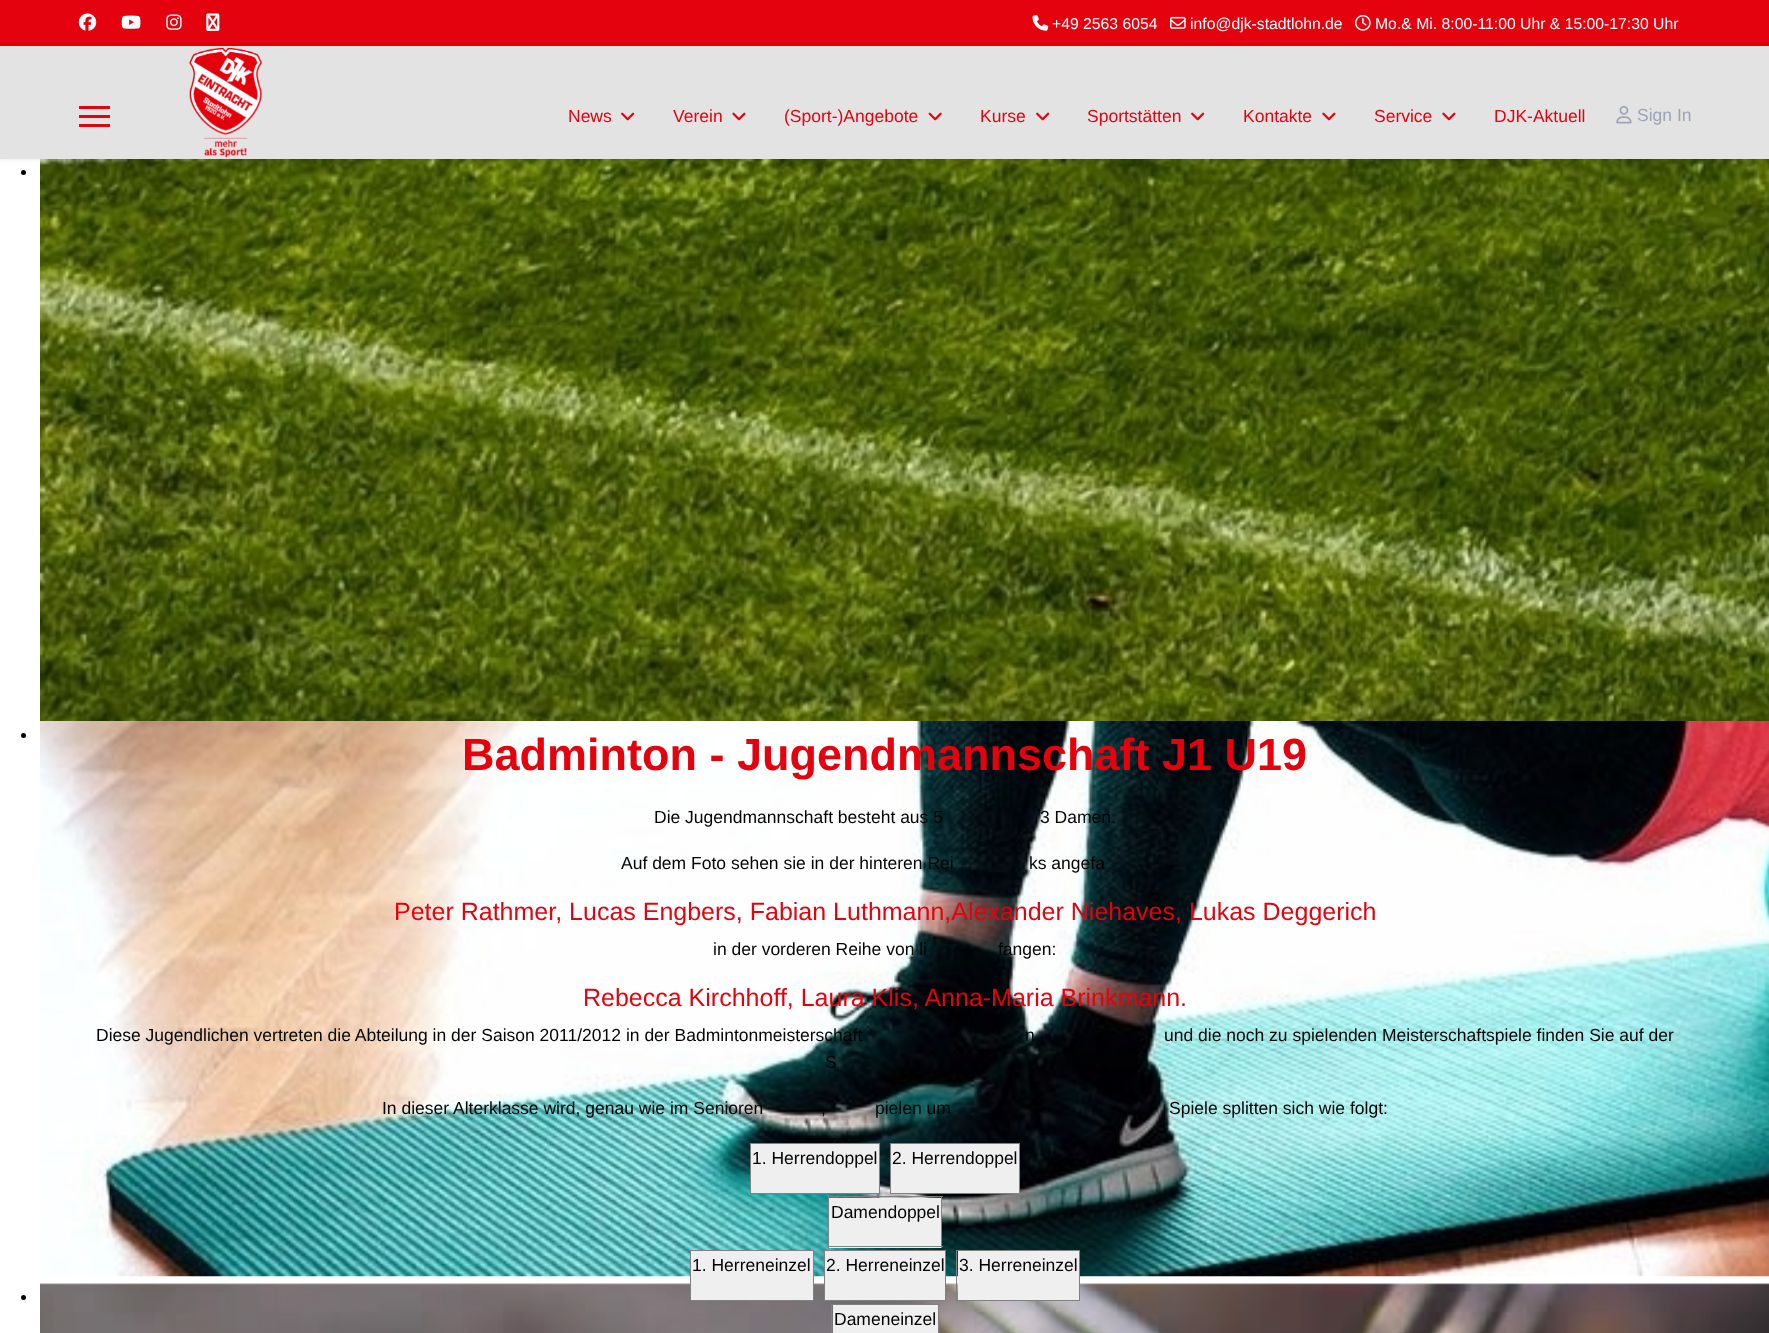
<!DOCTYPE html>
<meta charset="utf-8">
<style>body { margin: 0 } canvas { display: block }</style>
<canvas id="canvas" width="1769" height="1333"></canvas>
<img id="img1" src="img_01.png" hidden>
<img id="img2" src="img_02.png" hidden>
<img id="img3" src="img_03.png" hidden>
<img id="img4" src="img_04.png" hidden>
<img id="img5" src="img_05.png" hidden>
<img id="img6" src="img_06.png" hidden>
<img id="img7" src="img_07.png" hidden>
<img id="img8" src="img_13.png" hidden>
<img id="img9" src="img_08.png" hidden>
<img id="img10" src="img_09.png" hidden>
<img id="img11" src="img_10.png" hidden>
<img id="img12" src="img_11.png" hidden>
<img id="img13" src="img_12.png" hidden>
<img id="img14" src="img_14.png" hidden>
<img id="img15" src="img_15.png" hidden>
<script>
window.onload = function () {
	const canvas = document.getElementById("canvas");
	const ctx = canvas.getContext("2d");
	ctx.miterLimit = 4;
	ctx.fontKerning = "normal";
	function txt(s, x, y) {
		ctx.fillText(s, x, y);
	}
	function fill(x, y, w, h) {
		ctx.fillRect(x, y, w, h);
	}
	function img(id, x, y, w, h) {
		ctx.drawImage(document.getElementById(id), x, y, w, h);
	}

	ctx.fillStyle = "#FFFFFF";
	fill(0, 0, 1769, 1333);
	ctx.fillStyle = "#E3020D";
	fill(0, 0, 1769, 46);
	img("img1", 78, 13, 19, 18);
	img("img2", 121, 15, 20, 14);
	img("img3", 166, 14, 16, 16);
	img("img4", 206, 13, 14, 18);
	img("img5", 1032, 15, 17, 16);
	img("img6", 1170, 16, 16, 13);
	img("img7", 1355, 15, 16, 16);
	img("img8", 40, 159, 1729, 562);
	ctx.fillStyle = "rgba(0, 0, 0, 0.1)";
	ctx.filter = "blur(2.5px)";
	ctx.beginPath();
	ctx.rect(0, 46, 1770, 113);
	ctx.fill();
	ctx.filter = "none";
	ctx.fillStyle = "#E3E3E3";
	fill(0, 46, 1769, 113);
	ctx.fillStyle = "#E3020D";
	fill(79, 106, 31, 3);
	fill(79, 115, 31, 3);
	fill(79, 124, 31, 3);
	img("img9", 189, 47, 74, 111);
	img("img10", 621, 112, 14, 9);
	img("img11", 732, 112, 14, 9);
	img("img12", 928, 112, 14, 9);
	img("img10", 1036, 112, 14, 9);
	img("img10", 1191, 112, 14, 9);
	img("img11", 1322, 112, 14, 9);
	img("img11", 1442, 112, 14, 9);
	img("img13", 1616, 106, 16, 18);
	ctx.fillStyle = "#030303";
	ctx.beginPath();
	ctx.arc(23.5, 172.5, 2.5, 0, Math.PI * 2);
	ctx.fill();
	ctx.beginPath();
	ctx.arc(23.5, 735.5, 2.5, 0, Math.PI * 2);
	ctx.fill();
	img("img14", 40, 721, 1729, 556);
	ctx.beginPath();
	ctx.arc(23.5, 1297.5, 2.5, 0, Math.PI * 2);
	ctx.fill();
	img("img15", 40, 1283, 1729, 50);
	ctx.fillStyle = "#808080";
	fill(750, 1143, 130, 1);
	fill(879, 1143, 1, 51);
	fill(750, 1193, 130, 1);
	fill(750, 1143, 1, 51);
	ctx.fillStyle = "#EFEFEF";
	fill(751, 1144, 128, 49);
	ctx.fillStyle = "#808080";
	fill(890, 1143, 130, 1);
	fill(1019, 1143, 1, 51);
	fill(890, 1193, 130, 1);
	fill(890, 1143, 1, 51);
	ctx.fillStyle = "#EFEFEF";
	fill(891, 1144, 128, 49);
	ctx.fillStyle = "#808080";
	fill(828, 1196, 115, 1);
	fill(941, 1196, 1, 52);
	ctx.fillStyle = "#EFEFEF";
	fill(829, 1198, 112, 50);
	ctx.fillStyle = "#808080";
	fill(828, 1246, 115, 1);
	fill(828, 1196, 1, 52);
	fill(690, 1250, 124, 1);
	fill(813, 1250, 1, 51);
	fill(690, 1300, 124, 1);
	fill(690, 1250, 1, 51);
	ctx.fillStyle = "#EFEFEF";
	fill(691, 1251, 122, 49);
	ctx.fillStyle = "#808080";
	fill(824, 1250, 122, 1);
	fill(945, 1250, 1, 51);
	fill(824, 1300, 122, 1);
	fill(824, 1250, 1, 51);
	ctx.fillStyle = "#EFEFEF";
	fill(825, 1251, 120, 49);
	ctx.fillStyle = "#808080";
	fill(956, 1250, 124, 1);
	fill(1079, 1250, 1, 51);
	fill(956, 1300, 124, 1);
	fill(956, 1250, 1, 51);
	ctx.fillStyle = "#EFEFEF";
	fill(958, 1251, 121, 49);
	ctx.fillStyle = "#808080";
	fill(831, 1304, 108, 1);
	fill(938, 1304, 1, 29);
	fill(831, 1304, 1, 29);
	ctx.fillStyle = "#EFEFEF";
	fill(833, 1305, 105, 28);
	ctx.font = "15.75px Liberation Sans";
	ctx.fillStyle = "#FFFFFF";
	txt("+49 2563 6054", 1052, 29);
	txt("info@djk-stadtlohn.de", 1190, 29);
	txt("Mo.& Mi. 8:00-11:00 Uhr & 15:00-17:30 Uhr", 1375, 29);
	ctx.font = "17.5px Liberation Sans";
	ctx.fillStyle = "#E3020D";
	txt("News", 568, 122);
	txt("Verein", 673, 122);
	txt("(Sport-)Angebote", 784, 122);
	txt("Kurse", 980, 122);
	txt("Sportstätten", 1087, 122);
	txt("Kontakte", 1243, 122);
	txt("Service", 1374, 122);
	txt("DJK-Aktuell", 1494, 122);
	ctx.fillStyle = "#9CA3B3";
	txt("Sign In", 1637, 121);
	ctx.font = "bold 45px Liberation Sans";
	ctx.fillStyle = "#E3020D";
	txt("Badminton - Jugendmannschaft J1 U19", 462, 770);
	ctx.font = "17.5px Liberation Sans";
	ctx.fillStyle = "#030303";
	txt("Die Jugendmannschaft besteht aus 5", 654, 823);
	txt("3 Damen.", 1040, 823);
	txt("Auf dem Foto sehen sie in der hinteren Rei", 621, 869);
	txt("ks angefa", 1029, 869);
	ctx.font = "25px Liberation Sans";
	ctx.fillStyle = "#E3020D";
	txt("Peter Rathmer, Lucas Engbers, Fabian Luthmann,Alexander Niehaves, Lukas Deggerich", 394, 920);
	ctx.font = "17.5px Liberation Sans";
	ctx.fillStyle = "#030303";
	txt("in der vorderen Reihe von li", 713, 955);
	txt("fangen:", 998, 955);
	ctx.font = "25px Liberation Sans";
	ctx.fillStyle = "#E3020D";
	txt("Rebecca Kirchhoff, Laura Klis, Anna-Maria Brinkmann.", 583, 1006);
	ctx.font = "17.5px Liberation Sans";
	ctx.fillStyle = "#030303";
	txt("Diese Jugendlichen vertreten die Abteilung in der Saison 2011/2012 in der Badmintonmeisterschaft", 96, 1041);
	txt("n", 1025, 1041);
	txt("und die noch zu spielenden Meisterschaftspiele finden Sie auf der", 1164, 1041);
	txt("S", 825, 1068);
	txt("In dieser Alterklasse wird, genau wie im Senioren", 382, 1114);
	txt(",", 821, 1114);
	txt("pielen um", 875, 1114);
	txt("Spiele splitten sich wie folgt:", 1169, 1114);
	txt("1. Herrendoppel", 752, 1164);
	txt("2. Herrendoppel", 892, 1164);
	txt("Damendoppel", 831, 1218);
	txt("1. Herreneinzel", 692, 1271);
	txt("2. Herreneinzel", 826, 1271);
	txt("3. Herreneinzel", 959, 1271);
	txt("Dameneinzel", 834, 1325);
};
</script>
